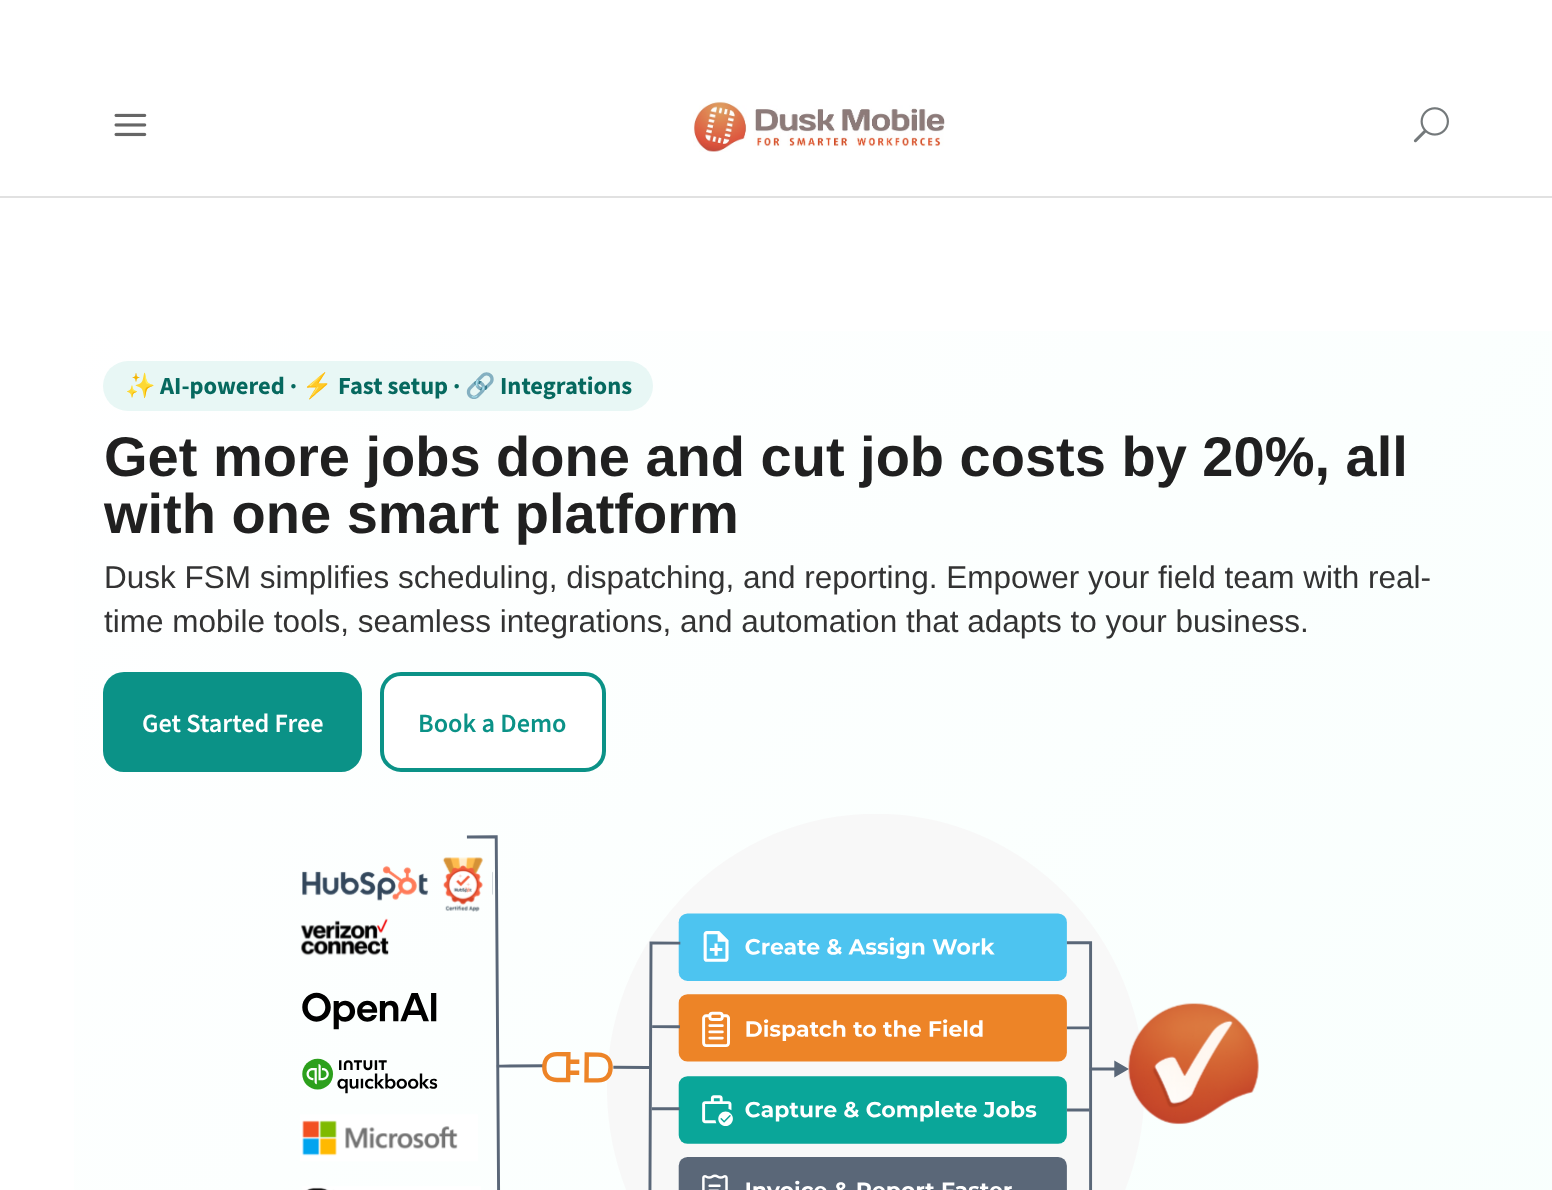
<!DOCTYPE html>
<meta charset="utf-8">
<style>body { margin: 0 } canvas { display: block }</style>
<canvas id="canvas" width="1552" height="1190"></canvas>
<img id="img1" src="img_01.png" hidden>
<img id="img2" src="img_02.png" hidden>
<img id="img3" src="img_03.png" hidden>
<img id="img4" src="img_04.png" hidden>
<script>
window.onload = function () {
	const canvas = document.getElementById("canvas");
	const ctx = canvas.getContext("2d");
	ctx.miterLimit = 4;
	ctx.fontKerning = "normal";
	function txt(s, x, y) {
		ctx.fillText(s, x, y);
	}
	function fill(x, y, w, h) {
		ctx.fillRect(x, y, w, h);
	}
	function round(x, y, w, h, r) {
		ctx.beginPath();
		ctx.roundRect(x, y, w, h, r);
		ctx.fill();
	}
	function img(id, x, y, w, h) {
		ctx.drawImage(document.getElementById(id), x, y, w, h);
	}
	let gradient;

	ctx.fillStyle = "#FFFFFF";
	fill(0, 0, 1552, 1190);
	ctx.fillStyle = "#E1E1E1";
	fill(0, 196, 1552, 2);
	img("img1", 114, 113, 33, 24);
	img("img2", 693, 101, 252, 51);
	img("img3", 1413, 107, 36, 36);
	gradient = ctx.createLinearGradient(125, 207, 1429, 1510);
	gradient.addColorStop(0, "#FFFFFF");
	gradient.addColorStop(1, "#F8FFFD");
	ctx.fillStyle = gradient;
	fill(74, 331, 1478, 859);
	ctx.fillStyle = "#E8F7F5";
	round(103, 361, 550, 50, 25);
	ctx.fillStyle = "#0B9287";
	round(103, 672, 259, 100, 21);
	ctx.fillStyle = "#FFFFFF";
	ctx.beginPath();
	ctx.roundRect(382, 674, 222, 96, 19);
	ctx.fill();
	ctx.strokeStyle = "#0B9287";
	ctx.lineWidth = 4;
	ctx.stroke();
	img("img4", 300, 814, 959, 376);
	ctx.font = "bold 24.5px Noto Color Emoji";
	ctx.fillStyle = "#06695F";
	txt("✨", 125, 394);
	ctx.font = "bold 24.5px Source Sans Pro";
	txt("AI-powered ·", 160, 394);
	ctx.font = "bold 24.5px Noto Color Emoji";
	txt("⚡", 302, 394);
	ctx.font = "bold 24.5px Source Sans Pro";
	txt("Fast setup ·", 338, 394);
	ctx.font = "bold 24.5px Noto Color Emoji";
	txt("🔗", 465, 394);
	ctx.font = "bold 24.5px Source Sans Pro";
	txt("Integrations", 500, 394);
	ctx.font = "bold 56px Liberation Sans";
	ctx.fillStyle = "#202020";
	txt("Get more jobs done and cut job costs by 20%, all", 104, 476);
	txt("with one smart platform", 104, 533);
	ctx.font = "31.5px Liberation Sans";
	ctx.fillStyle = "#333333";
	txt("Dusk FSM simplifies scheduling, dispatching, and reporting. Empower your field team with real-", 104, 588);
	txt("time mobile tools, seamless integrations, and automation that adapts to your business.", 104, 632);
	ctx.font = "600 26.25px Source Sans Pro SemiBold";
	ctx.fillStyle = "#FFFFFF";
	txt("Get Started Free", 142, 732);
	ctx.fillStyle = "#0B9287";
	txt("Book a Demo", 418, 732);
};
</script>
